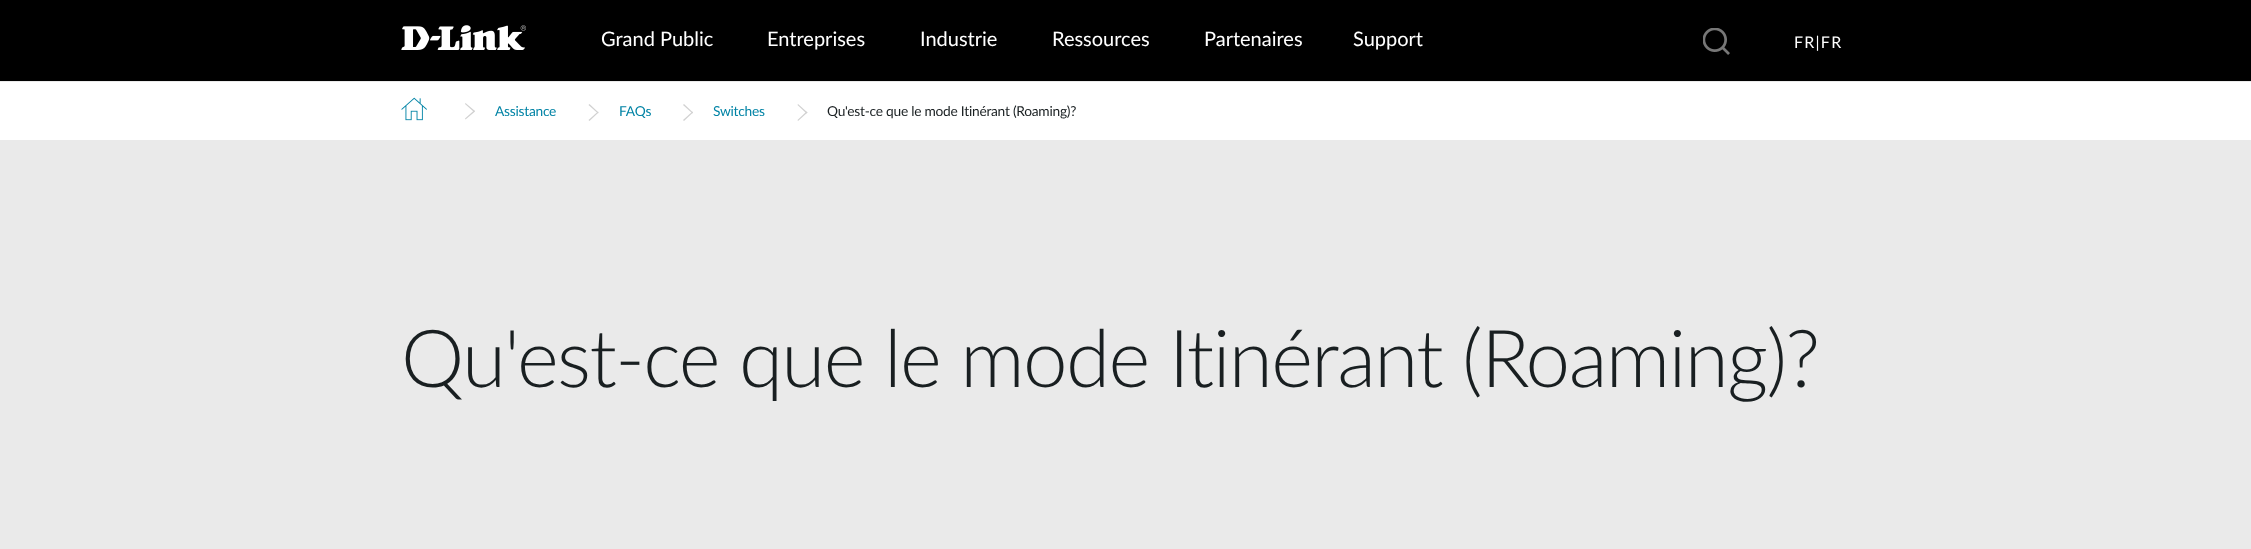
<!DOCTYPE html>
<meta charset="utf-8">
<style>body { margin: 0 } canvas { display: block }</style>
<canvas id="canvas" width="2251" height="549"></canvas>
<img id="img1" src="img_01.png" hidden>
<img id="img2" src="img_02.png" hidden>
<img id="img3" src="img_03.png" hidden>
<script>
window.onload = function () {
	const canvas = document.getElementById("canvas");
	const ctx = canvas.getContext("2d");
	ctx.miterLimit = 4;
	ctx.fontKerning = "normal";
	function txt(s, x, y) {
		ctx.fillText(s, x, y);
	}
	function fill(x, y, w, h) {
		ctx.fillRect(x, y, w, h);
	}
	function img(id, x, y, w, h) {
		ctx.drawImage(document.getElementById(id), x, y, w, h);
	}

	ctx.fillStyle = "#EAEAEA";
	fill(0, 0, 2251, 549);
	ctx.fillStyle = "#000000";
	fill(0, 0, 2251, 81);
	img("img1", 401, 25, 125, 25);
	img("img2", 1703, 28, 27, 27);
	ctx.fillStyle = "#FFFFFF";
	fill(0, 82, 2251, 58);
	img("img3", 401, 97, 26, 24);
	ctx.fillStyle = "#D1D1D1";
	ctx.beginPath();
	ctx.moveTo(465.5, 103);
	ctx.lineTo(475, 111);
	ctx.lineTo(474, 112);
	ctx.lineTo(465, 104);
	ctx.closePath();
	ctx.fill();
	ctx.beginPath();
	ctx.moveTo(465, 118.5);
	ctx.lineTo(474, 110.5);
	ctx.lineTo(475, 111.5);
	ctx.lineTo(465.5, 119.5);
	ctx.closePath();
	ctx.fill();
	ctx.beginPath();
	ctx.moveTo(589.5, 104);
	ctx.lineTo(598.5, 112.5);
	ctx.lineTo(598, 113.5);
	ctx.lineTo(588.5, 105);
	ctx.closePath();
	ctx.fill();
	ctx.beginPath();
	ctx.moveTo(588.5, 120);
	ctx.lineTo(598, 111.5);
	ctx.lineTo(598.5, 112.5);
	ctx.lineTo(589.5, 121);
	ctx.closePath();
	ctx.fill();
	ctx.beginPath();
	ctx.moveTo(684, 104);
	ctx.lineTo(693, 112.5);
	ctx.lineTo(692.5, 113.5);
	ctx.lineTo(683, 105);
	ctx.closePath();
	ctx.fill();
	ctx.beginPath();
	ctx.moveTo(683, 120);
	ctx.lineTo(692.5, 111.5);
	ctx.lineTo(693, 112.5);
	ctx.lineTo(684, 121);
	ctx.closePath();
	ctx.fill();
	ctx.beginPath();
	ctx.moveTo(798, 104);
	ctx.lineTo(807.5, 112.5);
	ctx.lineTo(806.5, 113.5);
	ctx.lineTo(797.5, 105);
	ctx.closePath();
	ctx.fill();
	ctx.beginPath();
	ctx.moveTo(797.5, 120);
	ctx.lineTo(806.5, 111.5);
	ctx.lineTo(807.5, 112.5);
	ctx.lineTo(798, 121);
	ctx.closePath();
	ctx.fill();
	ctx.font = "20px Lato";
	ctx.fillStyle = "#FFFFFF";
	txt("Grand Public", 601, 46);
	txt("Entreprises", 767, 46);
	txt("Industrie", 920, 46);
	txt("Ressources", 1052, 46);
	txt("Partenaires", 1204, 46);
	txt("Support", 1353, 46);
	ctx.letterSpacing = "1.25px";
	ctx.font = "16px Lato";
	txt("FR|FR", 1794, 48);
	ctx.letterSpacing = "-0.25px";
	ctx.font = "13.75px Lato";
	ctx.fillStyle = "#0083A5";
	txt("Assistance", 495, 116);
	txt("FAQs", 619, 116);
	txt("Switches", 713, 116);
	ctx.fillStyle = "#191F21";
	txt("Qu'est-ce que le mode Itinérant (Roaming)?", 827, 116);
	ctx.letterSpacing = "-1.6px";
	ctx.font = "300 80px Lato";
	txt("Qu'est-ce que le mode Itinérant (Roaming)?", 401, 387);
};
</script>
